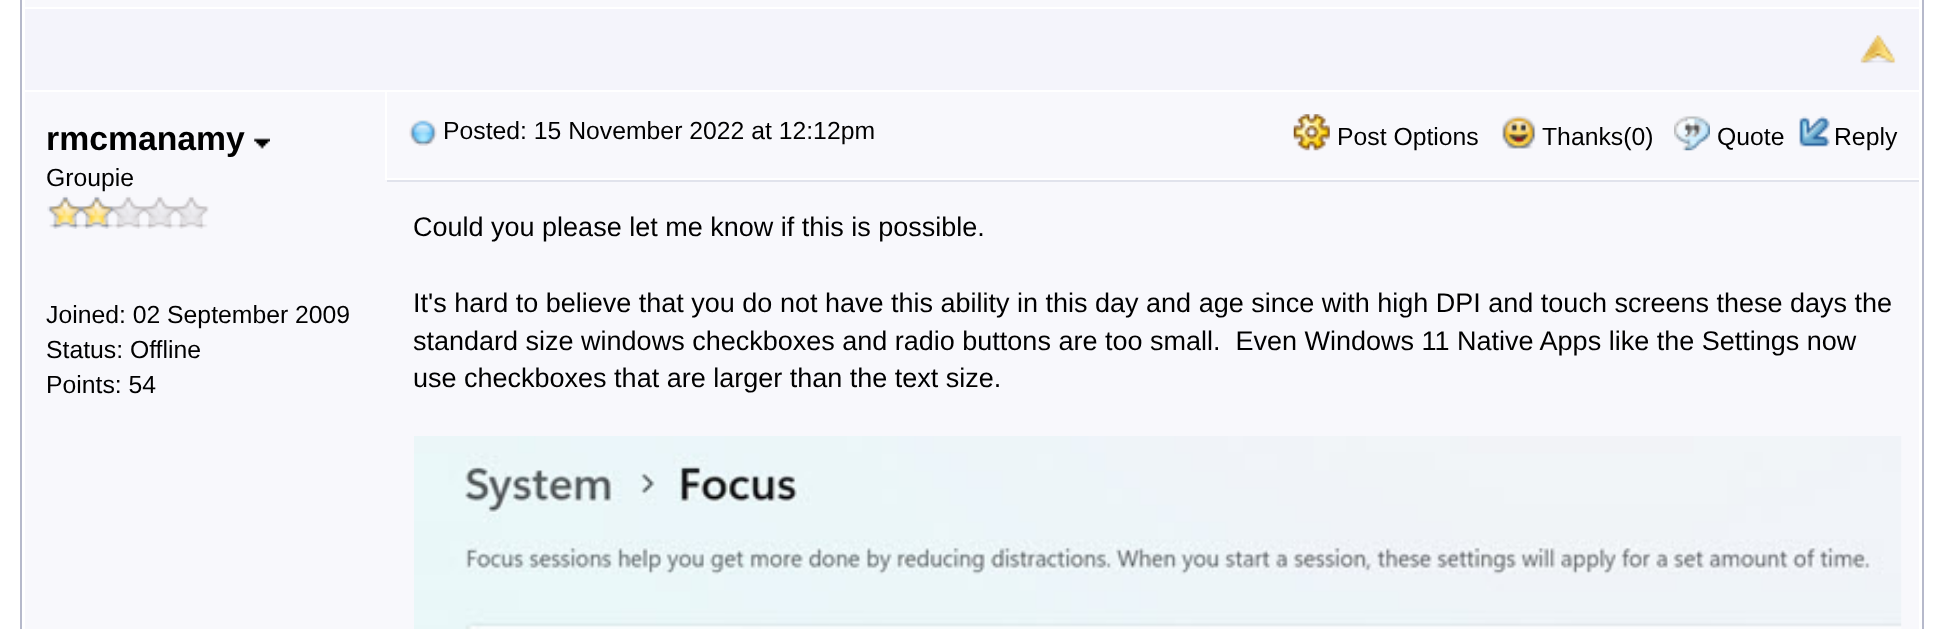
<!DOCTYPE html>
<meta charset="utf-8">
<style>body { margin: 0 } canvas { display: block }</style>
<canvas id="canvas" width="1942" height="629"></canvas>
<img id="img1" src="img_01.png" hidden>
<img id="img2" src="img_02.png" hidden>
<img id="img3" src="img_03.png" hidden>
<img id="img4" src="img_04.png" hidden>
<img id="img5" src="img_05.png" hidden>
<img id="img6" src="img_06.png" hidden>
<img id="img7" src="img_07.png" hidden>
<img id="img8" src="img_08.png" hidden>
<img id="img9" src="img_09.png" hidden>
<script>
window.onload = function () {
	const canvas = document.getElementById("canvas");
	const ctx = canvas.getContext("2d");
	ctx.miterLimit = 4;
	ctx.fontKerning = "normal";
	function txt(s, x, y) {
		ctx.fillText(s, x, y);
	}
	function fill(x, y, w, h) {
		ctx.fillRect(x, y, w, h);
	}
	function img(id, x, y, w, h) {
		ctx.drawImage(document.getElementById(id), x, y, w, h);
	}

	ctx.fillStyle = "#FFFFFF";
	fill(0, 0, 1942, 629);
	ctx.strokeStyle = "#B6B9CB";
	ctx.lineWidth = 2;
	ctx.strokeRect(21, -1, 1902, 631);
	ctx.fillStyle = "#F8F8FC";
	fill(25, 0, 1894, 7);
	ctx.fillStyle = "#F4F4FB";
	fill(25, 9, 1894, 81);
	img("img1", 1860, 35, 36, 29);
	ctx.fillStyle = "#F8F8FC";
	fill(25, 92, 360, 88);
	img("img2", 254, 138, 16, 11);
	fill(25, 180, 1894, 449);
	img("img3", 47, 195, 162, 34);
	fill(387, 92, 1532, 86);
	img("img4", 409, 119, 28, 27);
	img("img5", 1293, 114, 37, 37);
	img("img6", 1502, 116, 34, 33);
	img("img7", 1674, 116, 36, 35);
	img("img8", 1799, 116, 31, 31);
	ctx.fillStyle = "#E1E3EC";
	fill(387, 180, 1532, 2);
	img("img9", 414, 436, 1488, 193);
	ctx.font = "bold 33.75px Liberation Sans";
	ctx.fillStyle = "#000000";
	txt("rmcmanamy", 46, 150);
	ctx.font = "24.75px Liberation Sans";
	txt("Groupie", 46, 186);
	txt("Joined: 02 September 2009", 46, 323);
	txt("Status: Offline", 46, 358);
	txt("Points: 54", 46, 393);
	txt("Posted: 15 November 2022 at 12:12pm", 443, 139);
	txt("Post Options", 1337, 145);
	txt("Thanks(0)", 1542, 145);
	txt("Quote", 1717, 145);
	txt("Reply", 1834, 145);
	ctx.font = "27px Liberation Sans";
	txt("Could you please let me know if this is possible.", 413, 236);
	txt("It's hard to believe that you do not have this ability in this day and age since with high DPI and touch screens these days the", 413, 312);
	txt("standard size windows checkboxes and radio buttons are too small.  Even Windows 11 Native Apps like the Settings now", 413, 350);
	txt("use checkboxes that are larger than the text size.", 413, 387);
};
</script>
